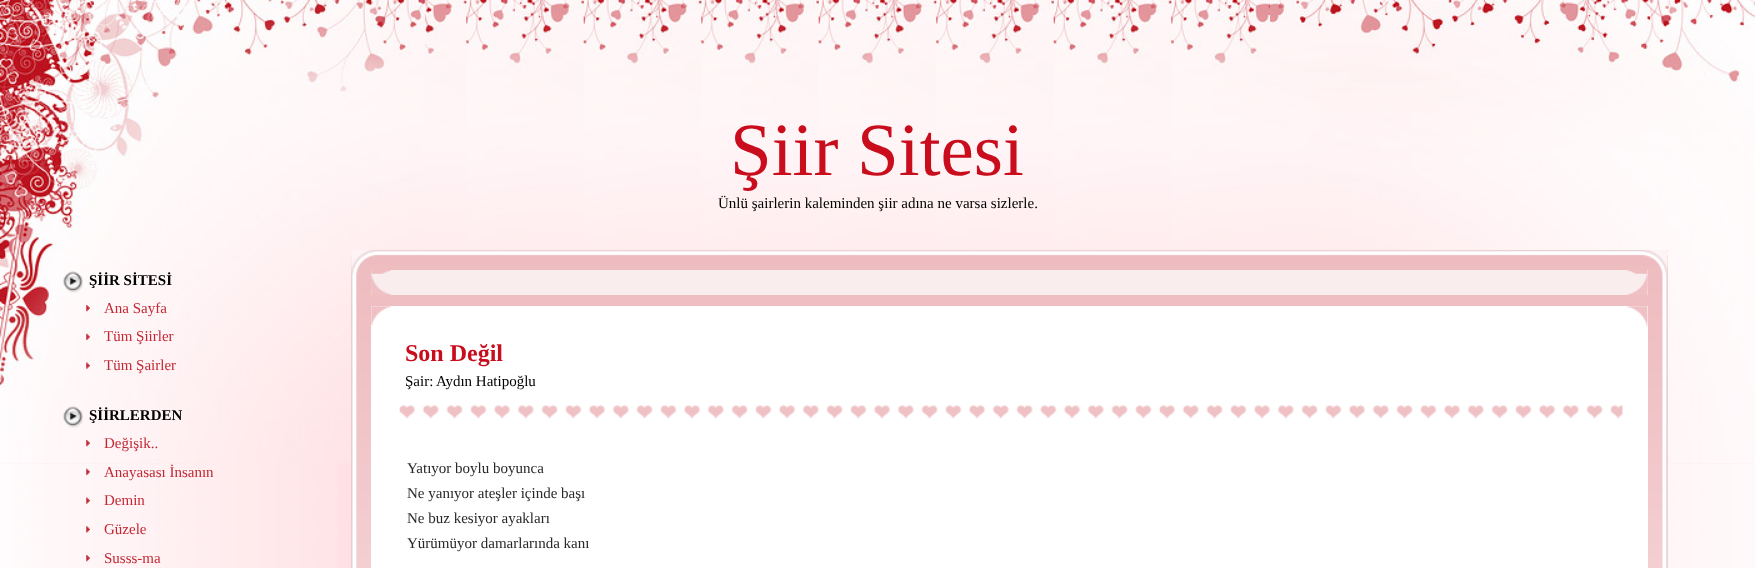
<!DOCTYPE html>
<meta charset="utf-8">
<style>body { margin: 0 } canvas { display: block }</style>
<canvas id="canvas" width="1755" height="568"></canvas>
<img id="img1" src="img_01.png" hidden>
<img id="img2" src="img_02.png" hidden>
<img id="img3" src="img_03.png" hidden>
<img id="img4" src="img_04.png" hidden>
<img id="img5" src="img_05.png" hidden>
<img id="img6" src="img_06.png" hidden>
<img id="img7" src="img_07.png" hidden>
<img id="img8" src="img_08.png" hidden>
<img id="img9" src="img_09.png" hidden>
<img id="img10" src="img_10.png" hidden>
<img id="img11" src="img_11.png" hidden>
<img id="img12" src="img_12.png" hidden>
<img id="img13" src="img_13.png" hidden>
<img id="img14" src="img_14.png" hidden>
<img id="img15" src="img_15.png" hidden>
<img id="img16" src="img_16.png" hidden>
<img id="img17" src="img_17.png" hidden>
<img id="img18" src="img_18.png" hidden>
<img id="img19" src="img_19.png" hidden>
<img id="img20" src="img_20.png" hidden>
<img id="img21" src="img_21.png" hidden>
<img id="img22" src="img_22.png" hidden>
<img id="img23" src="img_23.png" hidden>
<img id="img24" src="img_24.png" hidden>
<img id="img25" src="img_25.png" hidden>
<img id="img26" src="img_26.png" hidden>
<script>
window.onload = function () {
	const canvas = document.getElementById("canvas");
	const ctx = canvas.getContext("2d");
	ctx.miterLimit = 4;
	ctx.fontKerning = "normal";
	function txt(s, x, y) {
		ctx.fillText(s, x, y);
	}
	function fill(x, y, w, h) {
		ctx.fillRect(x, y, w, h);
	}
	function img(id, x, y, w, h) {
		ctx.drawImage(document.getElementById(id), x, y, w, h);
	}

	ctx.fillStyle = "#FFE0E3";
	fill(0, 0, 1755, 568);
	img("img1", 0, 463, 338, 105);
	img("img2", 1667, 463, 88, 105);
	img("img3", 0, 0, 1755, 464);
	img("img4", 0, 0, 425, 464);
	img("img5", 1270, 0, 485, 464);
	img("img6", 62, 271, 21, 22);
	img("img7", 86, 305, 4, 7);
	img("img8", 86, 333, 4, 7);
	img("img9", 86, 362, 4, 7);
	img("img10", 62, 406, 21, 22);
	img("img11", 86, 440, 4, 7);
	img("img12", 86, 468, 4, 7);
	img("img13", 86, 497, 4, 7);
	img("img14", 86, 526, 4, 7);
	img("img11", 86, 555, 4, 7);
	img("img15", 351, 250, 1, 318);
	img("img16", 1667, 250, 1, 318);
	img("img17", 351, 250, 1317, 318);
	img("img18", 351, 250, 24, 318);
	img("img19", 1643, 250, 25, 318);
	ctx.fillStyle = "#FAEDEE";
	fill(371, 270, 1277, 25);
	img("img20", 371, 270, 21, 20);
	img("img21", 1627, 270, 21, 21);
	img("img22", 371, 273, 21, 22);
	img("img23", 1627, 273, 21, 22);
	ctx.fillStyle = "#FFFFFF";
	fill(371, 306, 1277, 262);
	img("img24", 371, 306, 21, 20);
	img("img25", 1627, 306, 21, 22);
	img("img26", 399, 405, 1224, 14);
	ctx.font = "75px Liberation Serif";
	ctx.fillStyle = "#C90D1C";
	txt("Şiir Sitesi", 730, 175);
	ctx.font = "15px Liberation Serif";
	ctx.fillStyle = "#000000";
	txt("Ünlü şairlerin kaleminden şiir adına ne varsa sizlerle.", 718, 208);
	ctx.font = "bold 15px Liberation Serif";
	txt("ŞİİR SİTESİ", 89, 285);
	ctx.font = "15px Liberation Serif";
	ctx.fillStyle = "#C22834";
	txt("Ana Sayfa", 104, 313);
	txt("Tüm Şiirler", 104, 341);
	txt("Tüm Şairler", 104, 370);
	ctx.font = "bold 15px Liberation Serif";
	ctx.fillStyle = "#000000";
	txt("ŞİİRLERDEN", 89, 420);
	ctx.font = "15px Liberation Serif";
	ctx.fillStyle = "#C22834";
	txt("Değişik..", 104, 448);
	txt("Anayasası İnsanın", 104, 477);
	txt("Demin", 104, 505);
	txt("Güzele", 104, 534);
	txt("Susss-ma", 104, 563);
	ctx.font = "bold 24px Liberation Serif";
	ctx.fillStyle = "#C90D1C";
	txt("Son Değil", 405, 361);
	ctx.font = "15px Liberation Serif";
	ctx.fillStyle = "#000000";
	txt("Şair:", 405, 386);
	txt("Aydın Hatipoğlu", 436, 386);
	ctx.fillStyle = "#292727";
	txt("Yatıyor boylu boyunca", 407, 473);
	txt("Ne yanıyor ateşler içinde başı", 407, 498);
	txt("Ne buz kesiyor ayakları", 407, 523);
	txt("Yürümüyor damarlarında kanı", 407, 548);
};
</script>
